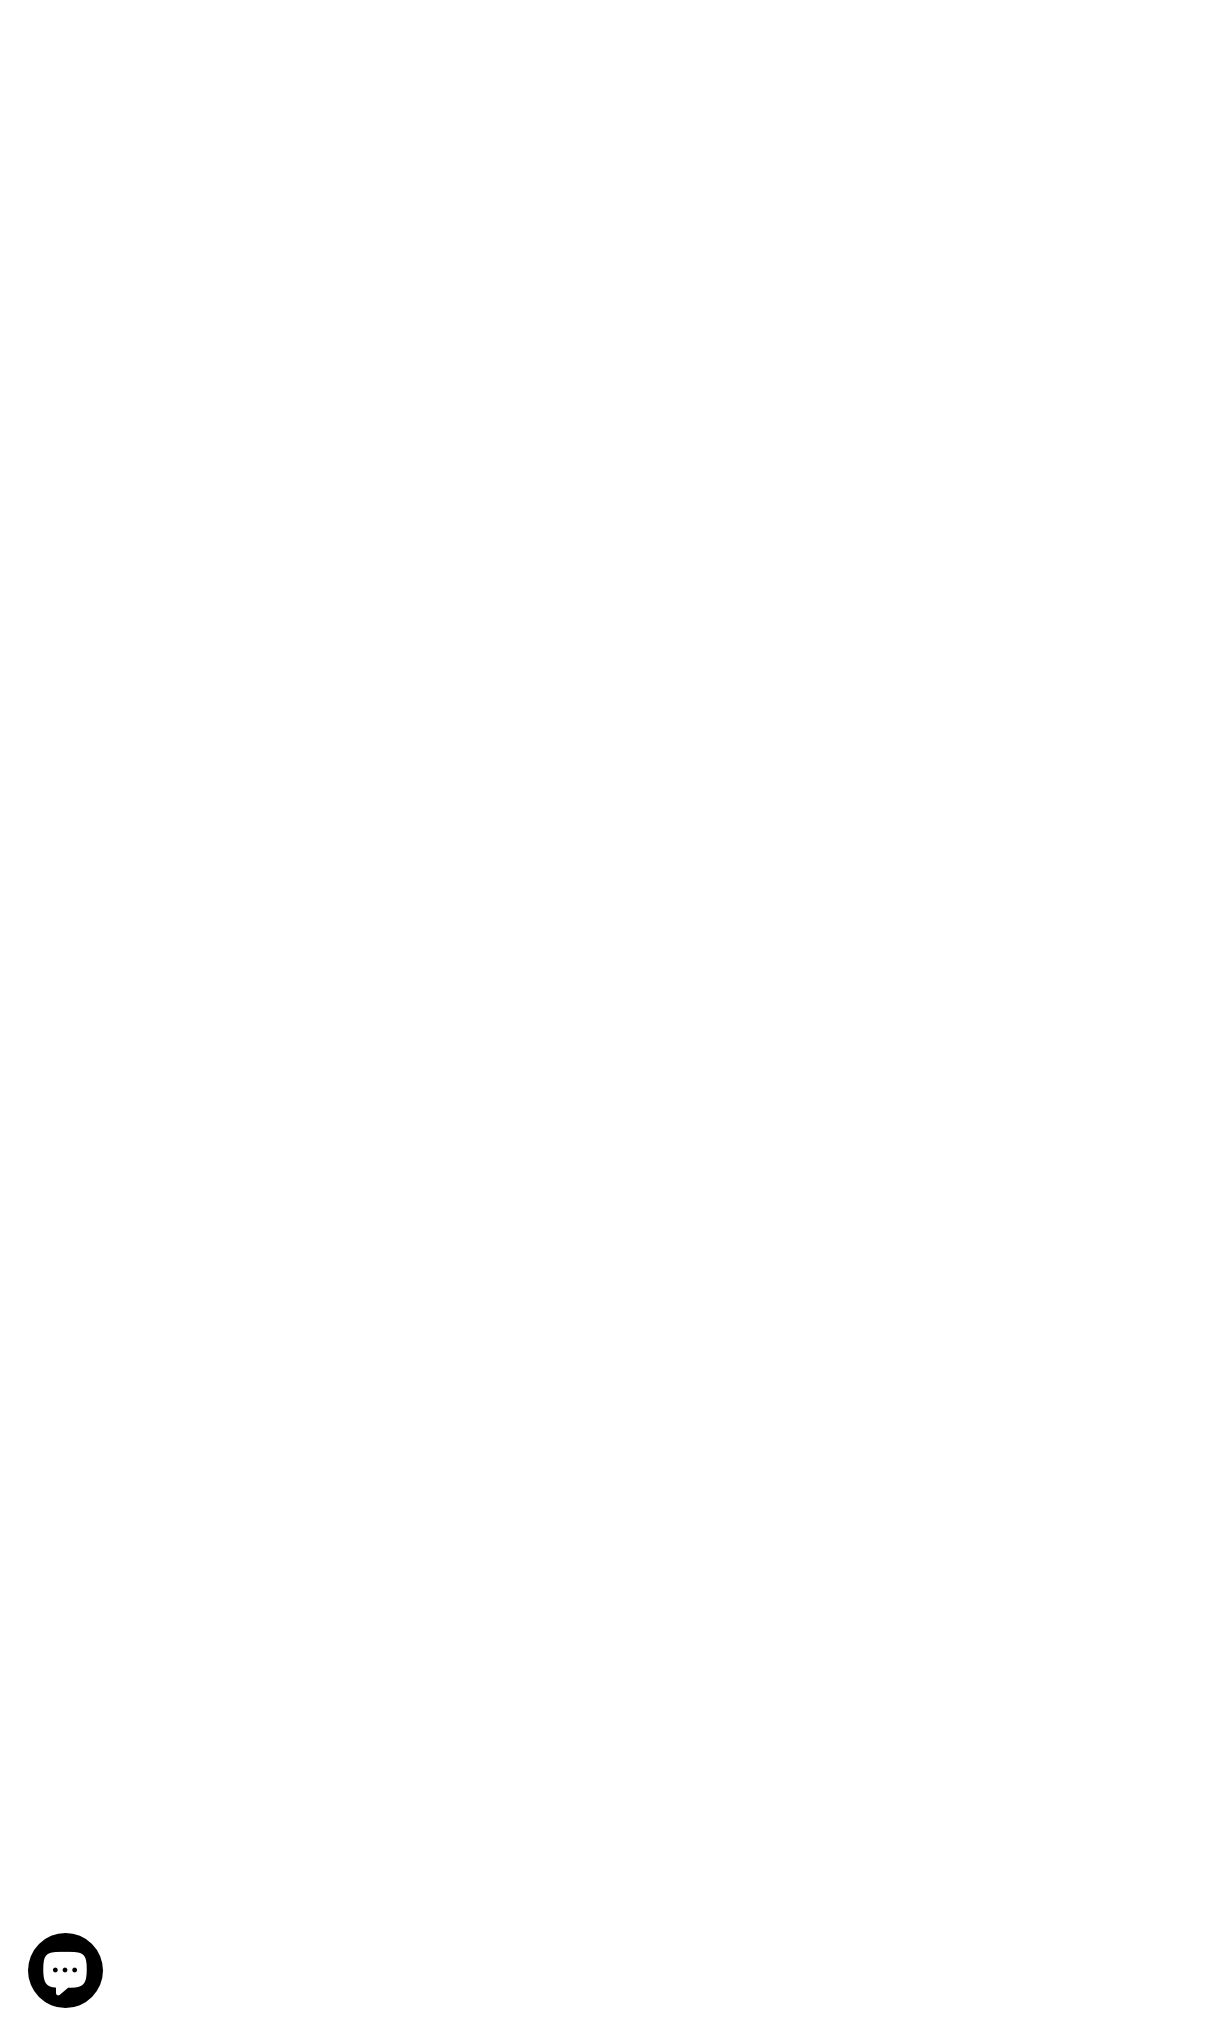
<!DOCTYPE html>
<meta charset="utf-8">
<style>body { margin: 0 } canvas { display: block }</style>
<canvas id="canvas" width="1221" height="2033"></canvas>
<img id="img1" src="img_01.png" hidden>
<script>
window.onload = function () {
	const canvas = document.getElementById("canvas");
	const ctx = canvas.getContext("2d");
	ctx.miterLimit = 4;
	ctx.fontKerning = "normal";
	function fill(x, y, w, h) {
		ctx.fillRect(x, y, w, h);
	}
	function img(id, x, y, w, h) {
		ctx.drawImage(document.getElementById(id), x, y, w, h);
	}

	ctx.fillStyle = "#FFFFFF";
	fill(0, 0, 1221, 2033);
	ctx.fillStyle = "#000000";
	ctx.beginPath();
	ctx.arc(65.5, 1970.5, 37.5, 0, Math.PI * 2);
	ctx.fill();
	img("img1", 43, 1951, 44, 45);
};
</script>
